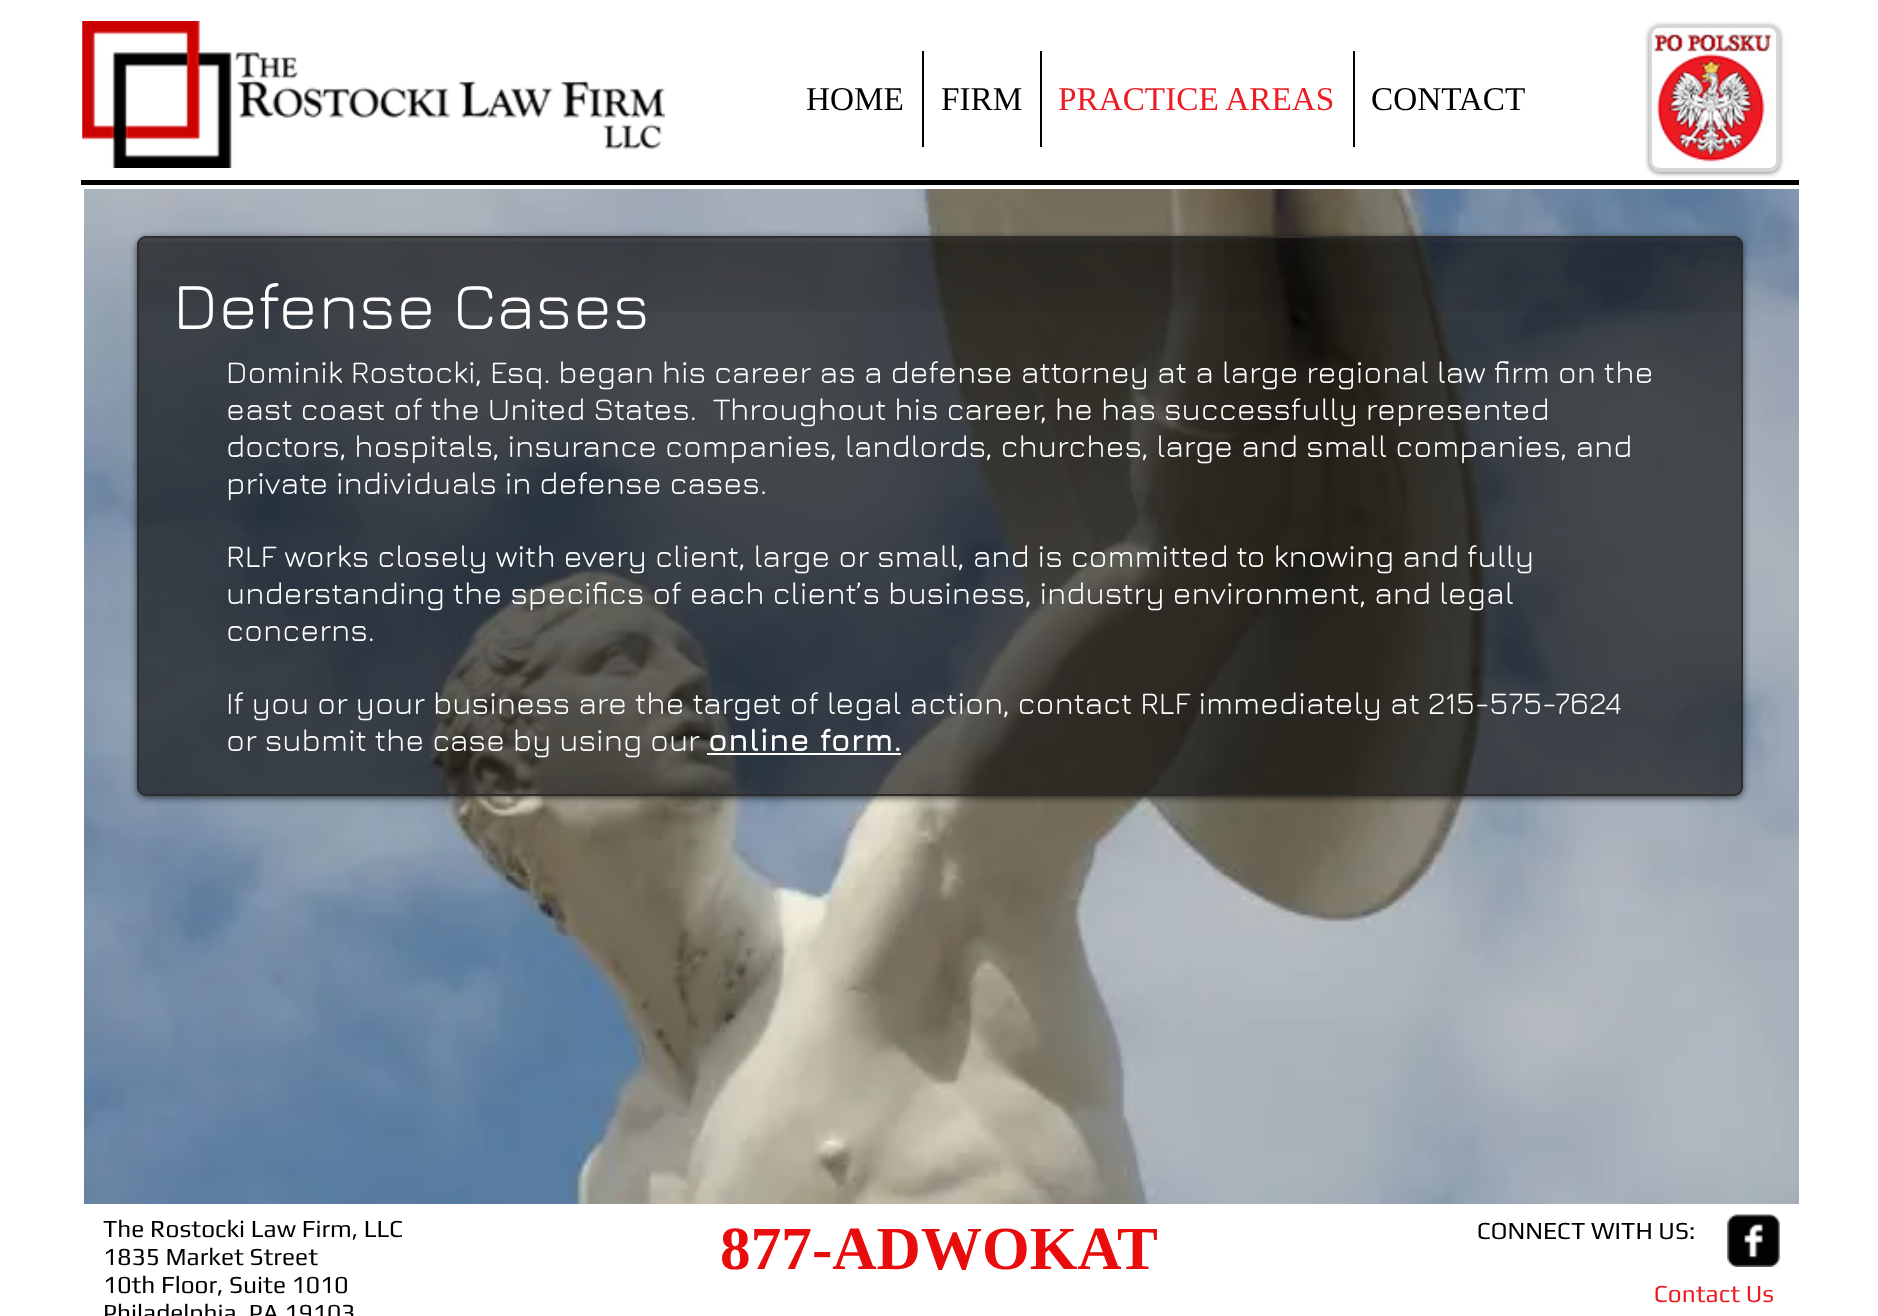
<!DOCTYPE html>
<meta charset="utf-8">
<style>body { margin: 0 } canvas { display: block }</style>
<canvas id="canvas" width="1878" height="1316"></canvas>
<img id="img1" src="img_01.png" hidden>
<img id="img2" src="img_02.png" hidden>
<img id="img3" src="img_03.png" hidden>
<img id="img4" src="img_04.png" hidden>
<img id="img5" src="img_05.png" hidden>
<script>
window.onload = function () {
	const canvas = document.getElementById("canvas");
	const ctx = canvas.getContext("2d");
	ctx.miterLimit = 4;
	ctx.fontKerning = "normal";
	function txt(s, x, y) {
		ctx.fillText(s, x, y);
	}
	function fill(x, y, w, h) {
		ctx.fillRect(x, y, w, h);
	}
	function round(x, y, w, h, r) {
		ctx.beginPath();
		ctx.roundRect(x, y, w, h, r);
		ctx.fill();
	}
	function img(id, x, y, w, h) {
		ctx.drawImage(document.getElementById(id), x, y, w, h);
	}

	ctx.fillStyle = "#FFFFFF";
	fill(0, 0, 1878, 1316);
	img("img1", 82, 21, 583, 147);
	ctx.fillStyle = "#000000";
	fill(922, 51, 2, 96);
	fill(1040, 51, 2, 96);
	fill(1353, 51, 2, 96);
	ctx.fillStyle = "rgba(0, 0, 0, 0.5)";
	ctx.filter = "blur(2.5px)";
	ctx.beginPath();
	ctx.roundRect(1649, 26, 131, 147, 11);
	ctx.fill();
	ctx.filter = "none";
	ctx.fillStyle = "#D7D7D7";
	ctx.beginPath();
	ctx.roundRect(1651, 27, 127, 143, 9);
	ctx.fill();
	ctx.strokeStyle = "#D7D7D7";
	ctx.lineWidth = 4;
	ctx.stroke();
	img("img2", 1652, 28, 124, 140);
	ctx.fillStyle = "#000000";
	fill(81, 180, 1718, 5);
	img("img3", 84, 189, 1715, 1015);
	ctx.save();
	ctx.beginPath();
	ctx.moveTo(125, 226);
	ctx.lineTo(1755, 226);
	ctx.lineTo(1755, 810);
	ctx.lineTo(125, 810);
	ctx.closePath();
	ctx.moveTo(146, 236);
	ctx.lineTo(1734, 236);
	ctx.bezierCurveTo(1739, 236, 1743, 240, 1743, 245);
	ctx.lineTo(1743, 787);
	ctx.bezierCurveTo(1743, 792, 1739, 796, 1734, 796);
	ctx.lineTo(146, 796);
	ctx.bezierCurveTo(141, 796, 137, 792, 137, 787);
	ctx.lineTo(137, 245);
	ctx.bezierCurveTo(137, 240, 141, 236, 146, 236);
	ctx.closePath();
	ctx.clip("evenodd");
	ctx.fillStyle = "rgba(0, 0, 0, 0.6)";
	ctx.filter = "blur(3.5px)";
	ctx.beginPath();
	ctx.roundRect(137, 238, 1606, 560, 9);
	ctx.fill();
	ctx.filter = "none";
	ctx.restore();
	ctx.fillStyle = "rgba(0, 0, 0, 0.6)";
	round(137, 236, 1606, 560, 9);
	img("img4", 137, 241, 1606, 70);
	ctx.beginPath();
	ctx.roundRect(138, 237, 1604, 558, 8);
	ctx.strokeStyle = "#2D2D2D";
	ctx.lineWidth = 2;
	ctx.stroke();
	ctx.fillStyle = "#FFFFFF";
	fill(707, 753, 194, 2);
	img("img5", 1727, 1214, 53, 53);
	ctx.font = "33.25px Liberation Serif";
	ctx.fillStyle = "#000000";
	txt("HOME", 806, 110);
	txt("FIRM", 941, 110);
	ctx.fillStyle = "#ED1C24";
	txt("PRACTICE AREAS", 1058, 110);
	ctx.fillStyle = "#000000";
	txt("CONTACT", 1371, 110);
	ctx.font = "66.5px Jura";
	ctx.fillStyle = "#FFFFFF";
	txt("Defense Cases", 173, 329);
	ctx.font = "31.5px Jura";
	txt("Dominik Rostocki, Esq. began his career as a defense attorney at a large regional law firm on the", 226, 383);
	txt("east coast of the United States.  Throughout his career, he has successfully represented", 226, 420);
	txt("doctors, hospitals, insurance companies, landlords, churches, large and small companies, and", 226, 457);
	txt("private individuals in defense cases.", 226, 494);
	txt("RLF works closely with every client, large or small, and is committed to knowing and fully", 226, 567);
	txt("understanding the specifics of each client’s business, industry environment, and legal", 226, 604);
	txt("concerns.", 226, 641);
	txt("If you or your business are the target of legal action, contact RLF immediately at 215-575-7624", 226, 714);
	txt("or submit the case by using our", 226, 751);
	ctx.font = "bold 31.5px Jura";
	txt("online form.", 708, 751);
	ctx.font = "24.5px Play";
	ctx.fillStyle = "#000000";
	txt("The Rostocki Law Firm, LLC", 103, 1237);
	txt("1835 Market Street", 103, 1265);
	txt("10th Floor, Suite 1010", 103, 1293);
	txt("Philadelphia, PA 19103", 103, 1321);
	ctx.font = "bold 61.25px Liberation Serif";
	ctx.fillStyle = "#E80C0C";
	txt("877-ADWOKAT", 720, 1269);
	ctx.font = "24.5px Play";
	ctx.fillStyle = "#000000";
	txt("CONNECT WITH US:", 1477, 1239);
	ctx.fillStyle = "#ED1C24";
	txt("Contact Us", 1654, 1302);
};
</script>
